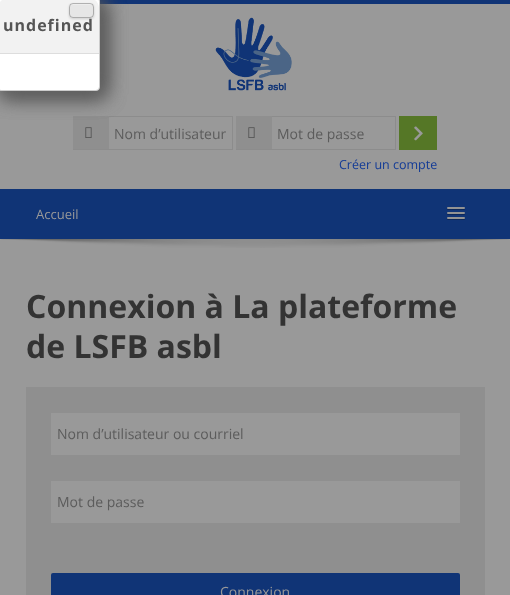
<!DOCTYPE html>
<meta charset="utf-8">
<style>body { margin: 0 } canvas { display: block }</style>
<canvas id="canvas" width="510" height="595"></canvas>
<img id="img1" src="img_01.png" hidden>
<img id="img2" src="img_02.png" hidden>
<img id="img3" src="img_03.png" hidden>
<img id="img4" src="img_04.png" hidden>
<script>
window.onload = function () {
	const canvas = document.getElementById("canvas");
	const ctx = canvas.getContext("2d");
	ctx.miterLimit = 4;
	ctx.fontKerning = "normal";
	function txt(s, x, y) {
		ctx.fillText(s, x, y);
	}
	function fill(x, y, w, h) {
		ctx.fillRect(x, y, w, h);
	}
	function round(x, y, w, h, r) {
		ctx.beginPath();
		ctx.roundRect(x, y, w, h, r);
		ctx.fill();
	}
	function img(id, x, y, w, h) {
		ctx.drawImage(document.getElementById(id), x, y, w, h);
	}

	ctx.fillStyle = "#999999";
	fill(0, 0, 510, 595);
	ctx.fillStyle = "#103476";
	fill(99, 0, 411, 4);
	ctx.strokeStyle = "#8C8C8C";
	ctx.strokeRect(73.5, 116.5, 159, 33);
	ctx.fillStyle = "#8F8F8F";
	fill(73, 116, 36, 33);
	ctx.fillStyle = "#3D3D3D";
	ctx.filter = "blur(10px)";
	ctx.beginPath();
	ctx.roundRect(2, 2, 103, 94, 4);
	ctx.fill();
	ctx.filter = "none";
	ctx.beginPath();
	ctx.roundRect(-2.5, -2.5, 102, 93, 3.5);
	ctx.strokeStyle = "#7A7A7A";
	ctx.stroke();
	ctx.fillStyle = "#666666";
	ctx.filter = "blur(10px)";
	ctx.beginPath();
	ctx.roundRect(2, 2, 103, 94, 4);
	ctx.fill();
	ctx.filter = "none";
	ctx.fillStyle = "#FFFFFF";
	ctx.beginPath();
	ctx.roundRect(-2.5, -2.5, 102, 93, 3.5);
	ctx.fill();
	ctx.strokeStyle = "#CCCCCC";
	ctx.stroke();
	ctx.fillStyle = "#F2F2F2";
	ctx.beginPath();
	ctx.moveTo(8, -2);
	ctx.lineTo(89, -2);
	ctx.bezierCurveTo(94.5, -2, 99, 2.5, 99, 8);
	ctx.lineTo(99, 54);
	ctx.lineTo(-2, 54);
	ctx.lineTo(-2, 8);
	ctx.bezierCurveTo(-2, 2.5, 2.5, -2, 8, -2);
	ctx.closePath();
	ctx.fill();
	ctx.fillStyle = "#DDDDDD";
	fill(0, 53, 99, 1);
	ctx.fillStyle = "rgba(0, 0, 0, 0.15)";
	ctx.filter = "blur(1px)";
	ctx.beginPath();
	ctx.roundRect(69, 4, 25, 15, 4);
	ctx.fill();
	ctx.filter = "none";
	ctx.fillStyle = "#E6E6E6";
	round(69, 3, 25, 15, 4);
	ctx.fillStyle = "rgba(255, 255, 255, 0.3)";
	ctx.beginPath();
	ctx.moveTo(73, 5);
	ctx.lineTo(92, 5);
	ctx.bezierCurveTo(93, 6, 94, 7, 94, 8);
	ctx.lineTo(94, 7);
	ctx.bezierCurveTo(94, 5, 92, 3, 90, 3);
	ctx.lineTo(73, 3);
	ctx.bezierCurveTo(71, 3, 69, 5, 69, 7);
	ctx.lineTo(69, 10);
	ctx.bezierCurveTo(69, 8, 70, 5, 73, 5);
	ctx.closePath();
	ctx.moveTo(94, 13);
	ctx.lineTo(94, 14.5);
	ctx.closePath();
	ctx.fill("evenodd");
	ctx.beginPath();
	ctx.roundRect(69.5, 3.5, 24, 14, 3.5);
	ctx.strokeStyle = "rgba(0, 0, 0, 0.25)";
	ctx.stroke();
	img("img1", 215, 17, 77, 74);
	img("img2", 85, 127, 7, 11);
	ctx.strokeStyle = "#8C8C8C";
	ctx.strokeRect(236.5, 116.5, 159, 33);
	ctx.fillStyle = "#8F8F8F";
	fill(236, 116, 36, 33);
	img("img2", 248, 127, 7, 11);
	ctx.fillStyle = "#557726";
	fill(399, 116, 38, 34);
	img("img3", 414, 126, 9, 15);
	ctx.fillStyle = "#103476";
	fill(0, 189, 510, 50);
	ctx.fillStyle = "#0C2759";
	ctx.beginPath();
	ctx.moveTo(447, 208.5);
	ctx.bezierCurveTo(446, 210.5, 450.5, 210, 450.5, 210);
	ctx.lineTo(461.5, 210);
	ctx.bezierCurveTo(461.5, 210, 466, 210.5, 465, 208.5);
	ctx.bezierCurveTo(464, 209.5, 457.5, 209, 456, 209);
	ctx.bezierCurveTo(454.5, 209, 448, 209.5, 447, 208.5);
	ctx.closePath();
	ctx.fill();
	ctx.fillStyle = "#939393";
	round(447, 207, 18, 2, 1);
	ctx.fillStyle = "#0C2759";
	ctx.beginPath();
	ctx.moveTo(447, 213.5);
	ctx.bezierCurveTo(446, 215.5, 450.5, 215, 450.5, 215);
	ctx.lineTo(461.5, 215);
	ctx.bezierCurveTo(461.5, 215, 466, 215.5, 465, 213.5);
	ctx.bezierCurveTo(464, 214.5, 457.5, 214, 456, 214);
	ctx.bezierCurveTo(454.5, 214, 448, 214.5, 447, 213.5);
	ctx.closePath();
	ctx.fill();
	ctx.fillStyle = "#939393";
	round(447, 212, 18, 2, 1);
	ctx.fillStyle = "#0C2759";
	ctx.beginPath();
	ctx.moveTo(447, 218.5);
	ctx.bezierCurveTo(446, 220.5, 450.5, 220, 450.5, 220);
	ctx.lineTo(461.5, 220);
	ctx.bezierCurveTo(461.5, 220, 466, 220.5, 465, 218.5);
	ctx.bezierCurveTo(464, 219.5, 457.5, 219, 456, 219);
	ctx.bezierCurveTo(454.5, 219, 448, 219.5, 447, 218.5);
	ctx.closePath();
	ctx.fill();
	ctx.fillStyle = "#939393";
	round(447, 217, 18, 2, 1);
	img("img4", 1, 239, 508, 9);
	ctx.fillStyle = "#8F8F8F";
	fill(26, 387, 459, 208);
	ctx.fillStyle = "#999999";
	fill(51, 413, 409, 42);
	fill(51, 481, 409, 42);
	ctx.fillStyle = "#103476";
	round(51, 573, 409, 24, 2);
	ctx.letterSpacing = "1px";
	ctx.font = "bold 16px Open Sans";
	ctx.fillStyle = "#555555";
	txt("undefined", 3, 31);
	ctx.letterSpacing = "0px";
	ctx.font = "14px Open Sans";
	ctx.fillStyle = "#5C5C5C";
	txt("Nom d’utilisateur", 114, 139);
	txt("Mot de passe", 277, 139);
	ctx.font = "12.5px Open Sans";
	ctx.fillStyle = "#123A96";
	txt("Créer un compte", 339, 169);
	ctx.font = "13px Open Sans";
	ctx.fillStyle = "#999999";
	txt("Accueil", 36, 219);
	ctx.font = "bold 32px Open Sans";
	ctx.fillStyle = "#333333";
	txt("Connexion à La plateforme", 26, 318);
	txt("de LSFB asbl", 26, 358);
	ctx.font = "14px Open Sans";
	ctx.fillStyle = "#5C5C5C";
	txt("Nom d’utilisateur ou courriel", 57, 439);
	txt("Mot de passe", 57, 507);
	ctx.fillStyle = "#999999";
	txt("Connexion", 220, 597);
};
</script>
